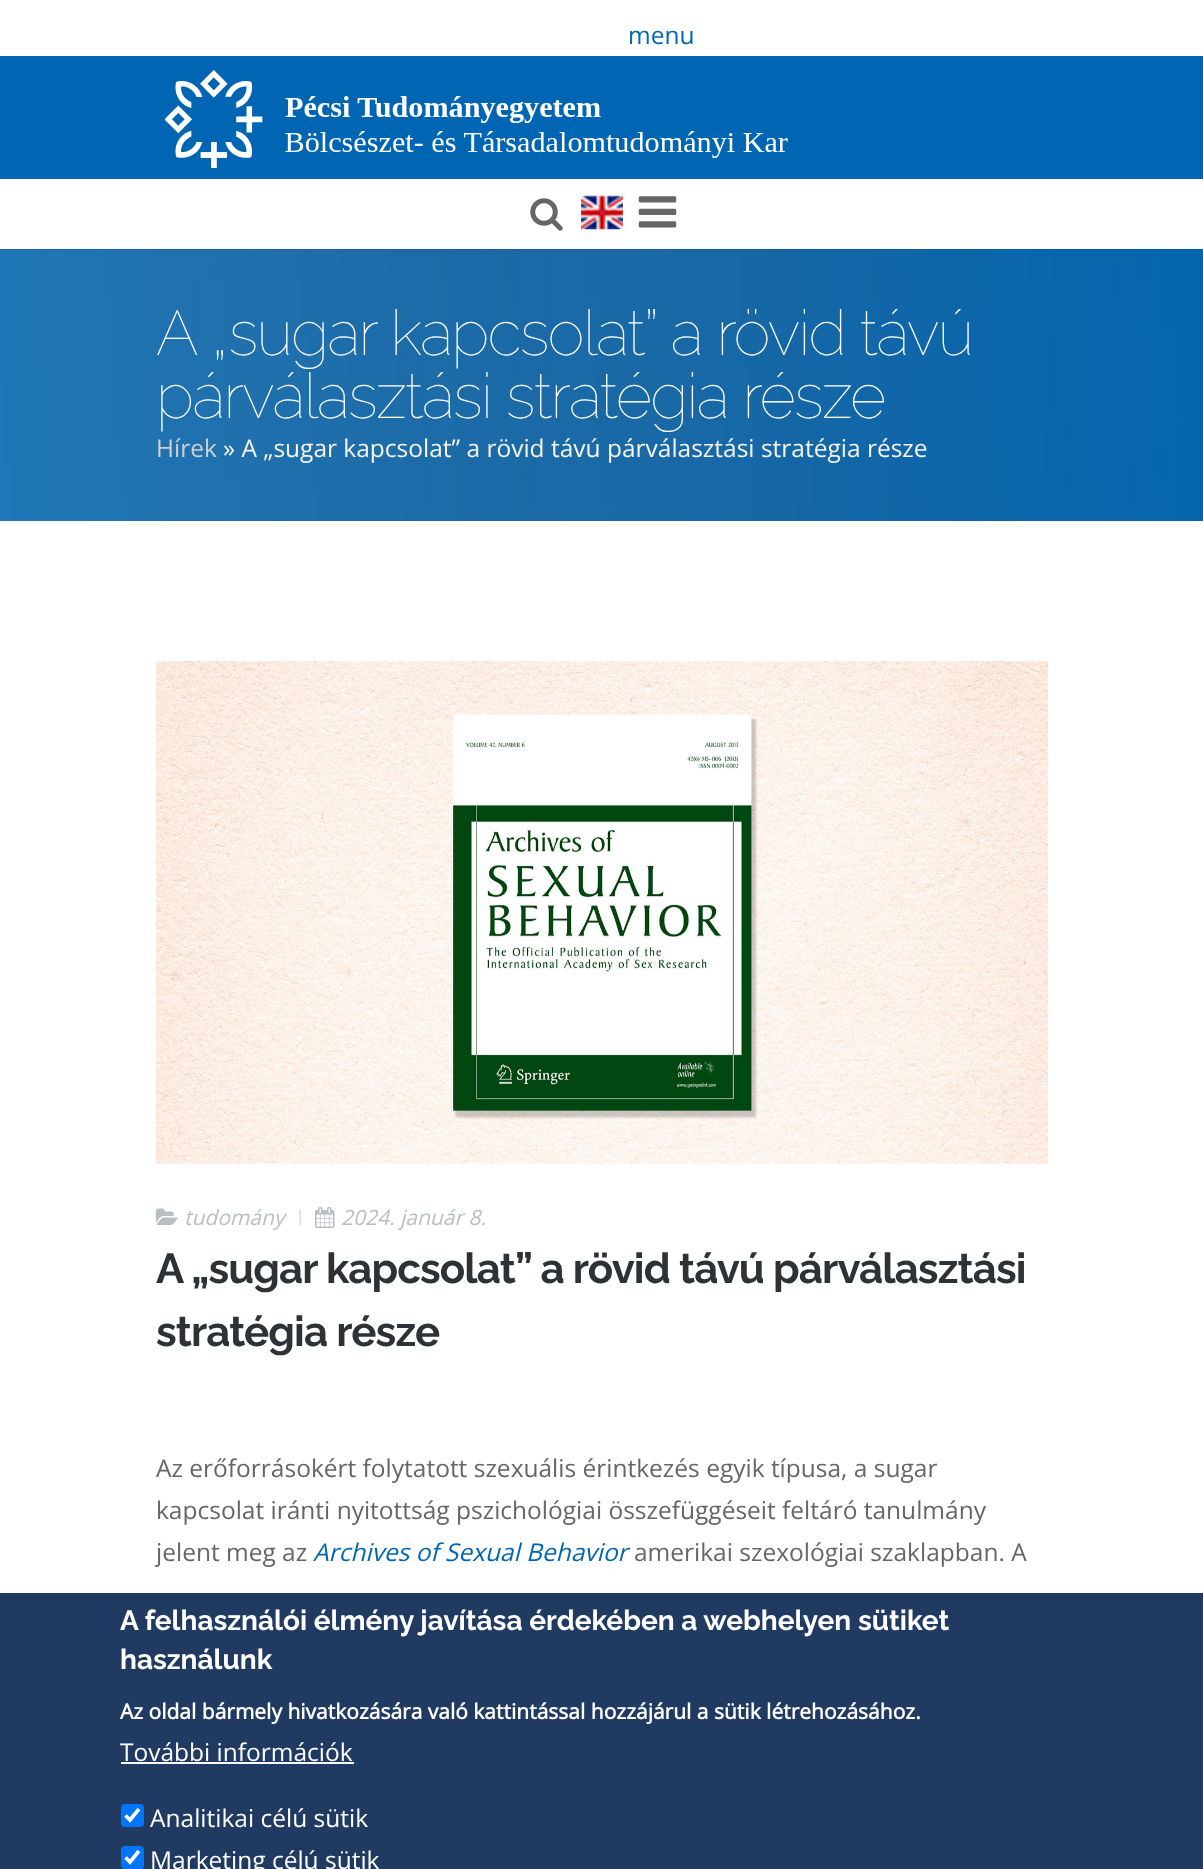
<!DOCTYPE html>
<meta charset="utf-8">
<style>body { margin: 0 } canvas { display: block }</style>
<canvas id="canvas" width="1203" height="1869"></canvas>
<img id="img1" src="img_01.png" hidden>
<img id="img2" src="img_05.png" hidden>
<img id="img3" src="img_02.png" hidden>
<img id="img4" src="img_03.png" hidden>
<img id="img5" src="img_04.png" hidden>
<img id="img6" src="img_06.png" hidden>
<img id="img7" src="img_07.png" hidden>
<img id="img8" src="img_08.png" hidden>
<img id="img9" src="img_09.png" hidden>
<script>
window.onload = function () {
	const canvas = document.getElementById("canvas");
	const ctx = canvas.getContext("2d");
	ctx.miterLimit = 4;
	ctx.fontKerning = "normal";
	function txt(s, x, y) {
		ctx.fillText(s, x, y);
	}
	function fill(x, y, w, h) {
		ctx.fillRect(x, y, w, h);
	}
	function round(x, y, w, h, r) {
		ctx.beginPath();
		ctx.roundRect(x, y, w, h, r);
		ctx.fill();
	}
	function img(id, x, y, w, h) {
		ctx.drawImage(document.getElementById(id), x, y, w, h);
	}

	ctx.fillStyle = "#FFFFFF";
	fill(0, 0, 1203, 1869);
	ctx.fillStyle = "#0066B3";
	fill(0, 56, 1203, 123);
	img("img1", 165, 70, 623, 98);
	img("img2", 0, 249, 1203, 272);
	ctx.fillStyle = "rgba(0, 0, 0, 0.2)";
	ctx.filter = "blur(1px)";
	ctx.beginPath();
	ctx.rect(2, 182, 1200, 67);
	ctx.fill();
	ctx.filter = "none";
	ctx.fillStyle = "#FFFFFF";
	fill(0, 180, 1203, 69);
	img("img3", 530, 198, 33, 33);
	img("img4", 581, 195, 42, 35);
	img("img5", 638, 196, 39, 32);
	img("img6", 156, 661, 892, 503);
	img("img7", 155, 1208, 23, 17);
	img("img8", 299, 1209, 3, 17);
	img("img9", 315, 1207, 20, 21);
	ctx.fillStyle = "#203A62";
	fill(0, 1593, 1203, 276);
	ctx.fillStyle = "#FFFFFF";
	fill(121, 1762, 233, 2);
	ctx.fillStyle = "#0075FF";
	round(121, 1804, 23, 23, 4);
	ctx.beginPath();
	ctx.moveTo(125.5, 1815.5);
	ctx.lineTo(130, 1820);
	ctx.lineTo(139, 1809);
	ctx.strokeStyle = "#FFFFFF";
	ctx.lineWidth = 3.6;
	ctx.stroke();
	round(121, 1846, 23, 23, 4);
	ctx.beginPath();
	ctx.moveTo(125.5, 1857.5);
	ctx.lineTo(130, 1862);
	ctx.lineTo(139, 1851);
	ctx.stroke();
	ctx.font = "24.5px Open Sans";
	ctx.fillStyle = "#0066B3";
	txt("menu", 628, 44);
	ctx.letterSpacing = "-1.75px";
	ctx.font = "100 63px Raleway";
	ctx.fillStyle = "#FFFFFF";
	txt("A „sugar kapcsolat” a rövid távú", 156, 355);
	txt("párválasztási stratégia része", 156, 418);
	ctx.letterSpacing = "0px";
	ctx.font = "24.5px Open Sans";
	ctx.fillStyle = "#CFD0D1";
	txt("Hírek", 156, 457);
	ctx.fillStyle = "#F6F5F5";
	txt("» A „sugar kapcsolat” a rövid távú párválasztási stratégia része", 223, 457);
	ctx.font = "italic 21px Open Sans";
	ctx.fillStyle = "#B9BEC3";
	txt("tudomány", 184, 1225);
	txt("2024. január 8.", 341, 1225);
	ctx.letterSpacing = "-0.9px";
	ctx.font = "bold 42px Raleway";
	ctx.fillStyle = "#2D3237";
	txt("A „sugar kapcsolat” a rövid távú párválasztási", 156, 1283);
	txt("stratégia része", 156, 1346);
	ctx.letterSpacing = "0px";
	ctx.font = "24.5px Open Sans";
	ctx.fillStyle = "#666666";
	txt("Az erőforrásokért folytatott szexuális érintkezés egyik típusa, a sugar", 156, 1477);
	txt("kapcsolat iránti nyitottság pszichológiai összefüggéseit feltáró tanulmány", 156, 1519);
	txt("jelent meg az", 156, 1561);
	ctx.font = "italic 24.5px Open Sans";
	ctx.fillStyle = "#0066B3";
	txt("Archives of Sexual Behavior", 313, 1561);
	ctx.font = "24.5px Open Sans";
	ctx.fillStyle = "#666666";
	txt("amerikai szexológiai szaklapban. A", 634, 1561);
	ctx.font = "bold 28px Raleway";
	ctx.fillStyle = "#FFFFFF";
	txt("A felhasználói élmény javítása érdekében a webhelyen sütiket", 120, 1630);
	txt("használunk", 120, 1669);
	ctx.font = "bold 21px Open Sans";
	txt("Az oldal bármely hivatkozására való kattintással hozzájárul a sütik létrehozásához.", 120, 1719);
	ctx.font = "24.5px Open Sans";
	txt("További információk", 120, 1761);
	txt("Analitikai célú sütik", 150, 1827);
	txt("Marketing célú sütik", 150, 1869);
};
</script>
